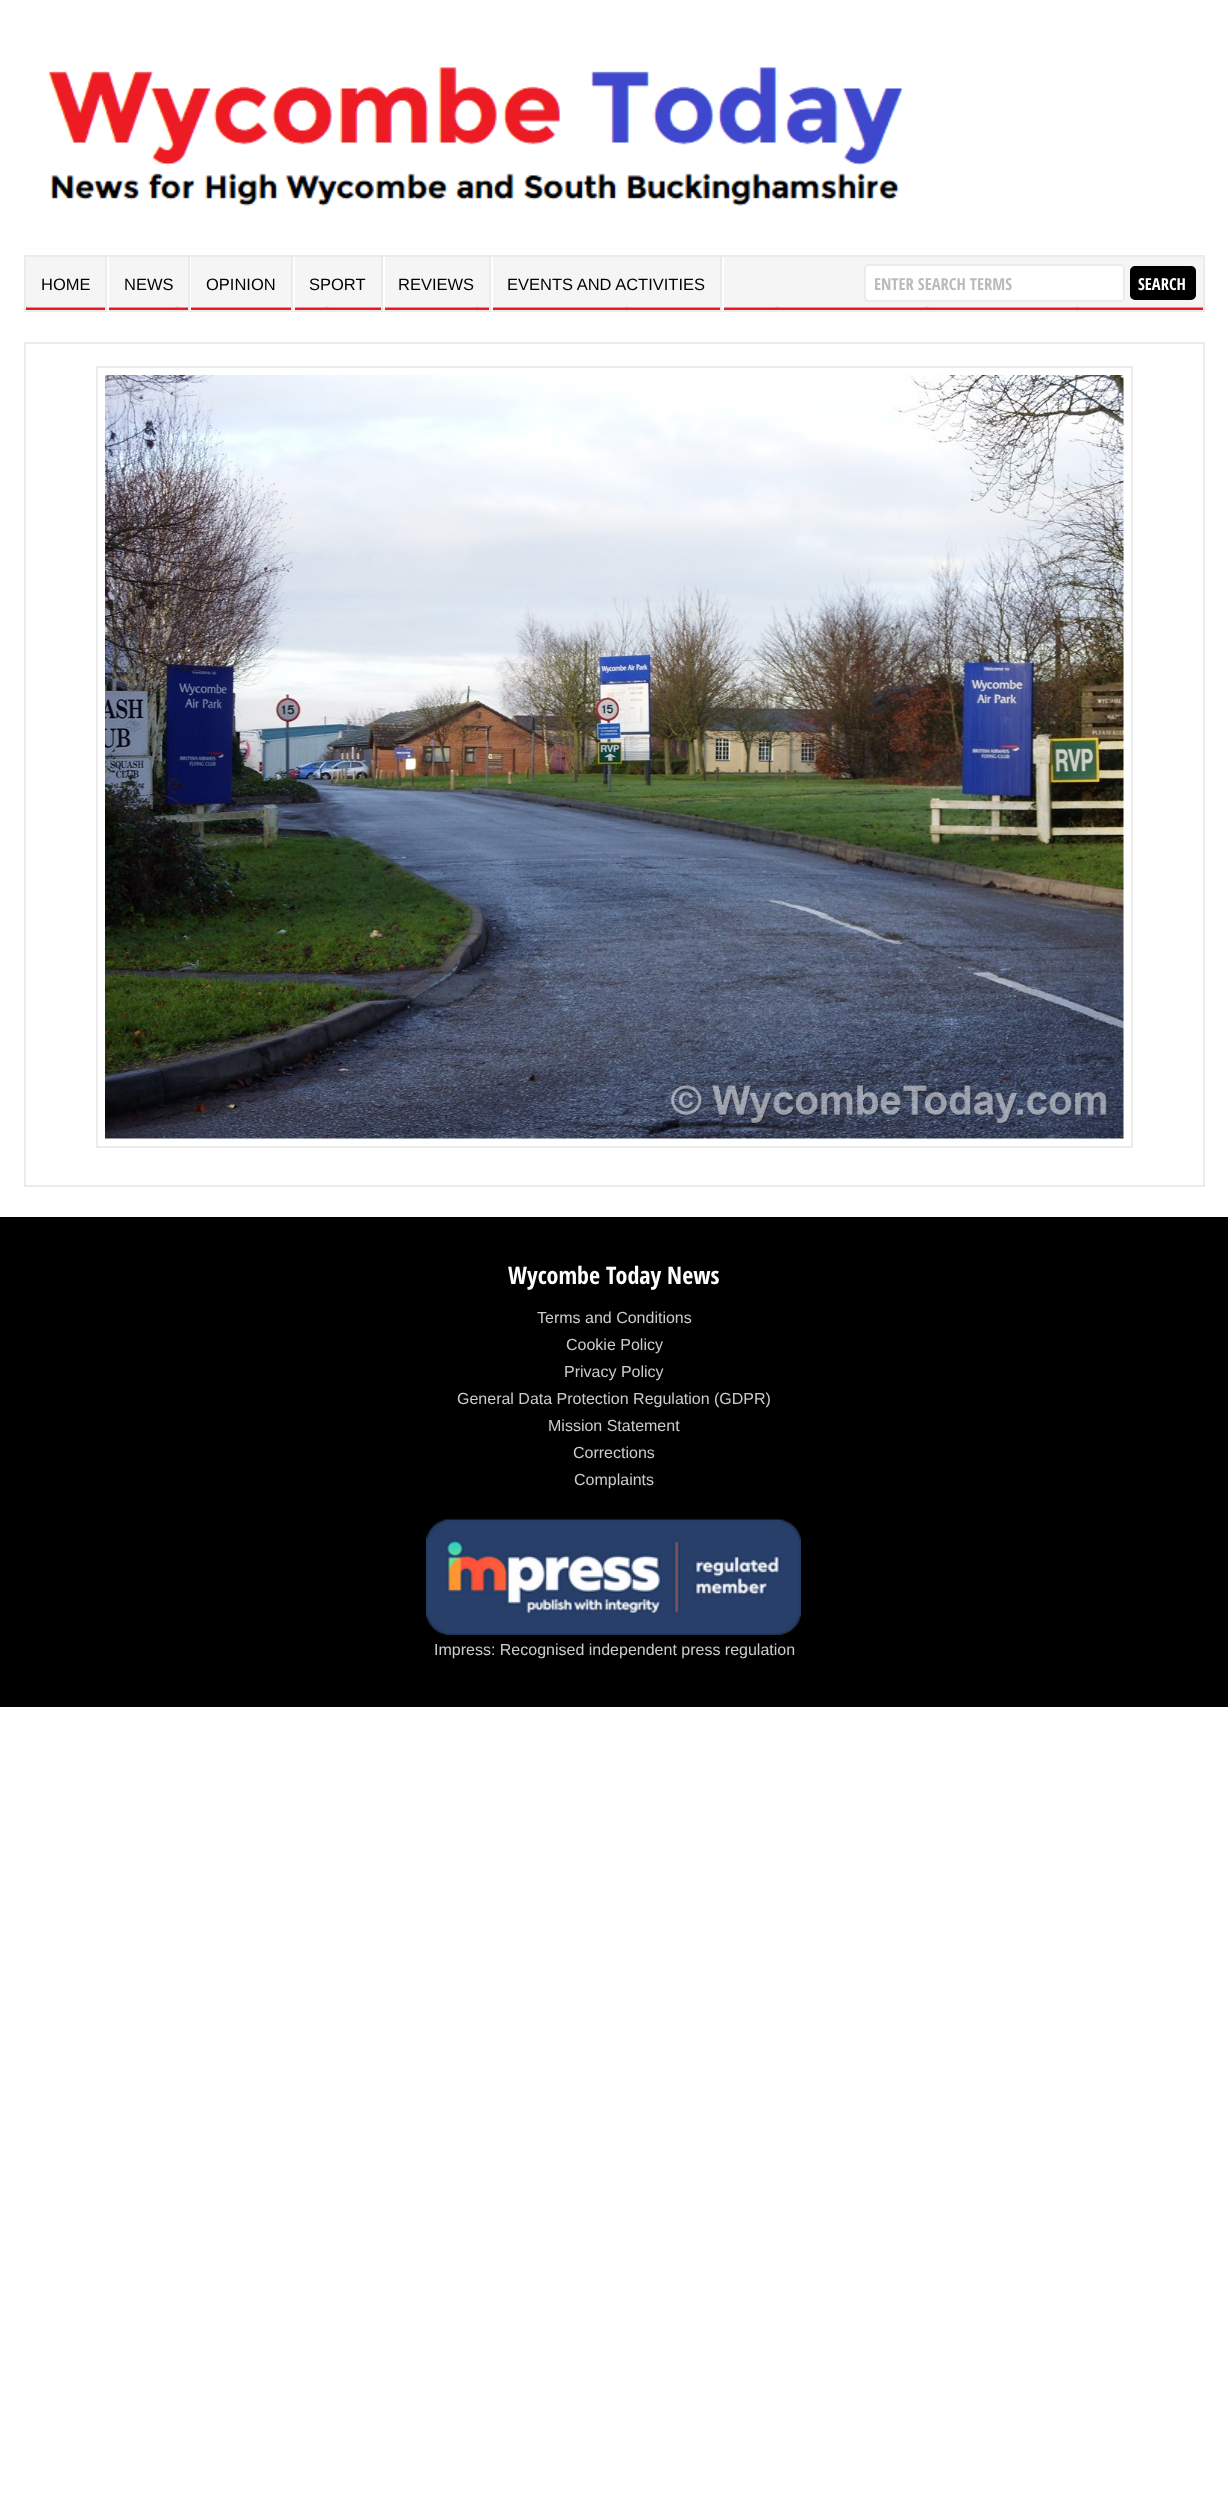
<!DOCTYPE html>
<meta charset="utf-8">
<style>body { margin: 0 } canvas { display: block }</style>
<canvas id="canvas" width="1228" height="2507"></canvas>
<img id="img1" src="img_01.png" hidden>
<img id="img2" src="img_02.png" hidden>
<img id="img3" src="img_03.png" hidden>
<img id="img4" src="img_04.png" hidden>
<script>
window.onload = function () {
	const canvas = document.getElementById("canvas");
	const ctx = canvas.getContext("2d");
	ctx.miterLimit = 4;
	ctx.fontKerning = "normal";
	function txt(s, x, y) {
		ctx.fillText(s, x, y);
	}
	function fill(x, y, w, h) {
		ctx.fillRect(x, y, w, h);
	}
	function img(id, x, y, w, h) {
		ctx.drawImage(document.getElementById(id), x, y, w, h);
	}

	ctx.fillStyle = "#FFFFFF";
	fill(0, 0, 1228, 2507);
	img("img1", 49, 67, 855, 139);
	img("img2", 26, 257, 1177, 53);
	ctx.strokeStyle = "#EBEBEB";
	ctx.lineWidth = 2;
	ctx.strokeRect(25, 256, 1179, 55);
	fill(107, 257, 2, 54);
	ctx.fillStyle = "#EBEBEB";
	fill(105, 257, 2, 54);
	ctx.fillStyle = "#FFFFFF";
	fill(190, 257, 1, 54);
	ctx.fillStyle = "#EBEBEB";
	fill(188, 257, 2, 54);
	ctx.fillStyle = "#FFFFFF";
	fill(293, 257, 2, 54);
	ctx.fillStyle = "#EBEBEB";
	fill(291, 257, 2, 54);
	ctx.fillStyle = "#FFFFFF";
	fill(383, 257, 2, 54);
	ctx.fillStyle = "#EBEBEB";
	fill(381, 257, 2, 54);
	ctx.fillStyle = "#FFFFFF";
	fill(491, 257, 2, 54);
	ctx.fillStyle = "#EBEBEB";
	fill(489, 257, 2, 54);
	ctx.fillStyle = "#FFFFFF";
	fill(722, 257, 2, 54);
	ctx.fillStyle = "#EBEBEB";
	fill(720, 257, 2, 54);
	ctx.fillStyle = "#FFFFFF";
	ctx.beginPath();
	ctx.roundRect(865, 265, 259, 36, 4);
	ctx.fill();
	ctx.stroke();
	ctx.fillStyle = "#000000";
	ctx.beginPath();
	ctx.roundRect(1131, 267, 64, 32, 4);
	ctx.fill();
	ctx.strokeStyle = "#000000";
	ctx.stroke();
	ctx.strokeStyle = "#EBEBEB";
	ctx.strokeRect(25, 343, 1179, 843);
	ctx.strokeRect(97, 367, 1035, 780);
	img("img3", 105, 375, 1019, 764);
	fill(0, 1217, 1228, 490);
	img("img4", 426, 1519, 375, 116);
	ctx.font = "16.5px Liberation Sans";
	txt("HOME", 41, 290);
	txt("NEWS", 124, 290);
	txt("OPINION", 206, 290);
	txt("SPORT", 309, 290);
	txt("REVIEWS", 398, 290);
	txt("EVENTS AND ACTIVITIES", 507, 290);
	ctx.font = "bold 16.5px Open Sans Condensed";
	ctx.fillStyle = "#BBBBBB";
	txt("ENTER SEARCH TERMS", 874, 290);
	ctx.fillStyle = "#FFFFFF";
	txt("SEARCH", 1138, 290);
	ctx.font = "bold 24px Open Sans Condensed";
	txt("Wycombe Today News", 508, 1284);
	ctx.font = "16px Liberation Sans";
	ctx.fillStyle = "#CCCCCC";
	txt("Terms and Conditions", 537, 1323);
	txt("Cookie Policy", 566, 1350);
	txt("Privacy Policy", 564, 1377);
	txt("General Data Protection Regulation (GDPR)", 457, 1404);
	txt("Mission Statement", 548, 1431);
	txt("Corrections", 573, 1458);
	txt("Complaints", 574, 1485);
	txt("Impress: Recognised independent press regulation", 434, 1655);
};
</script>
